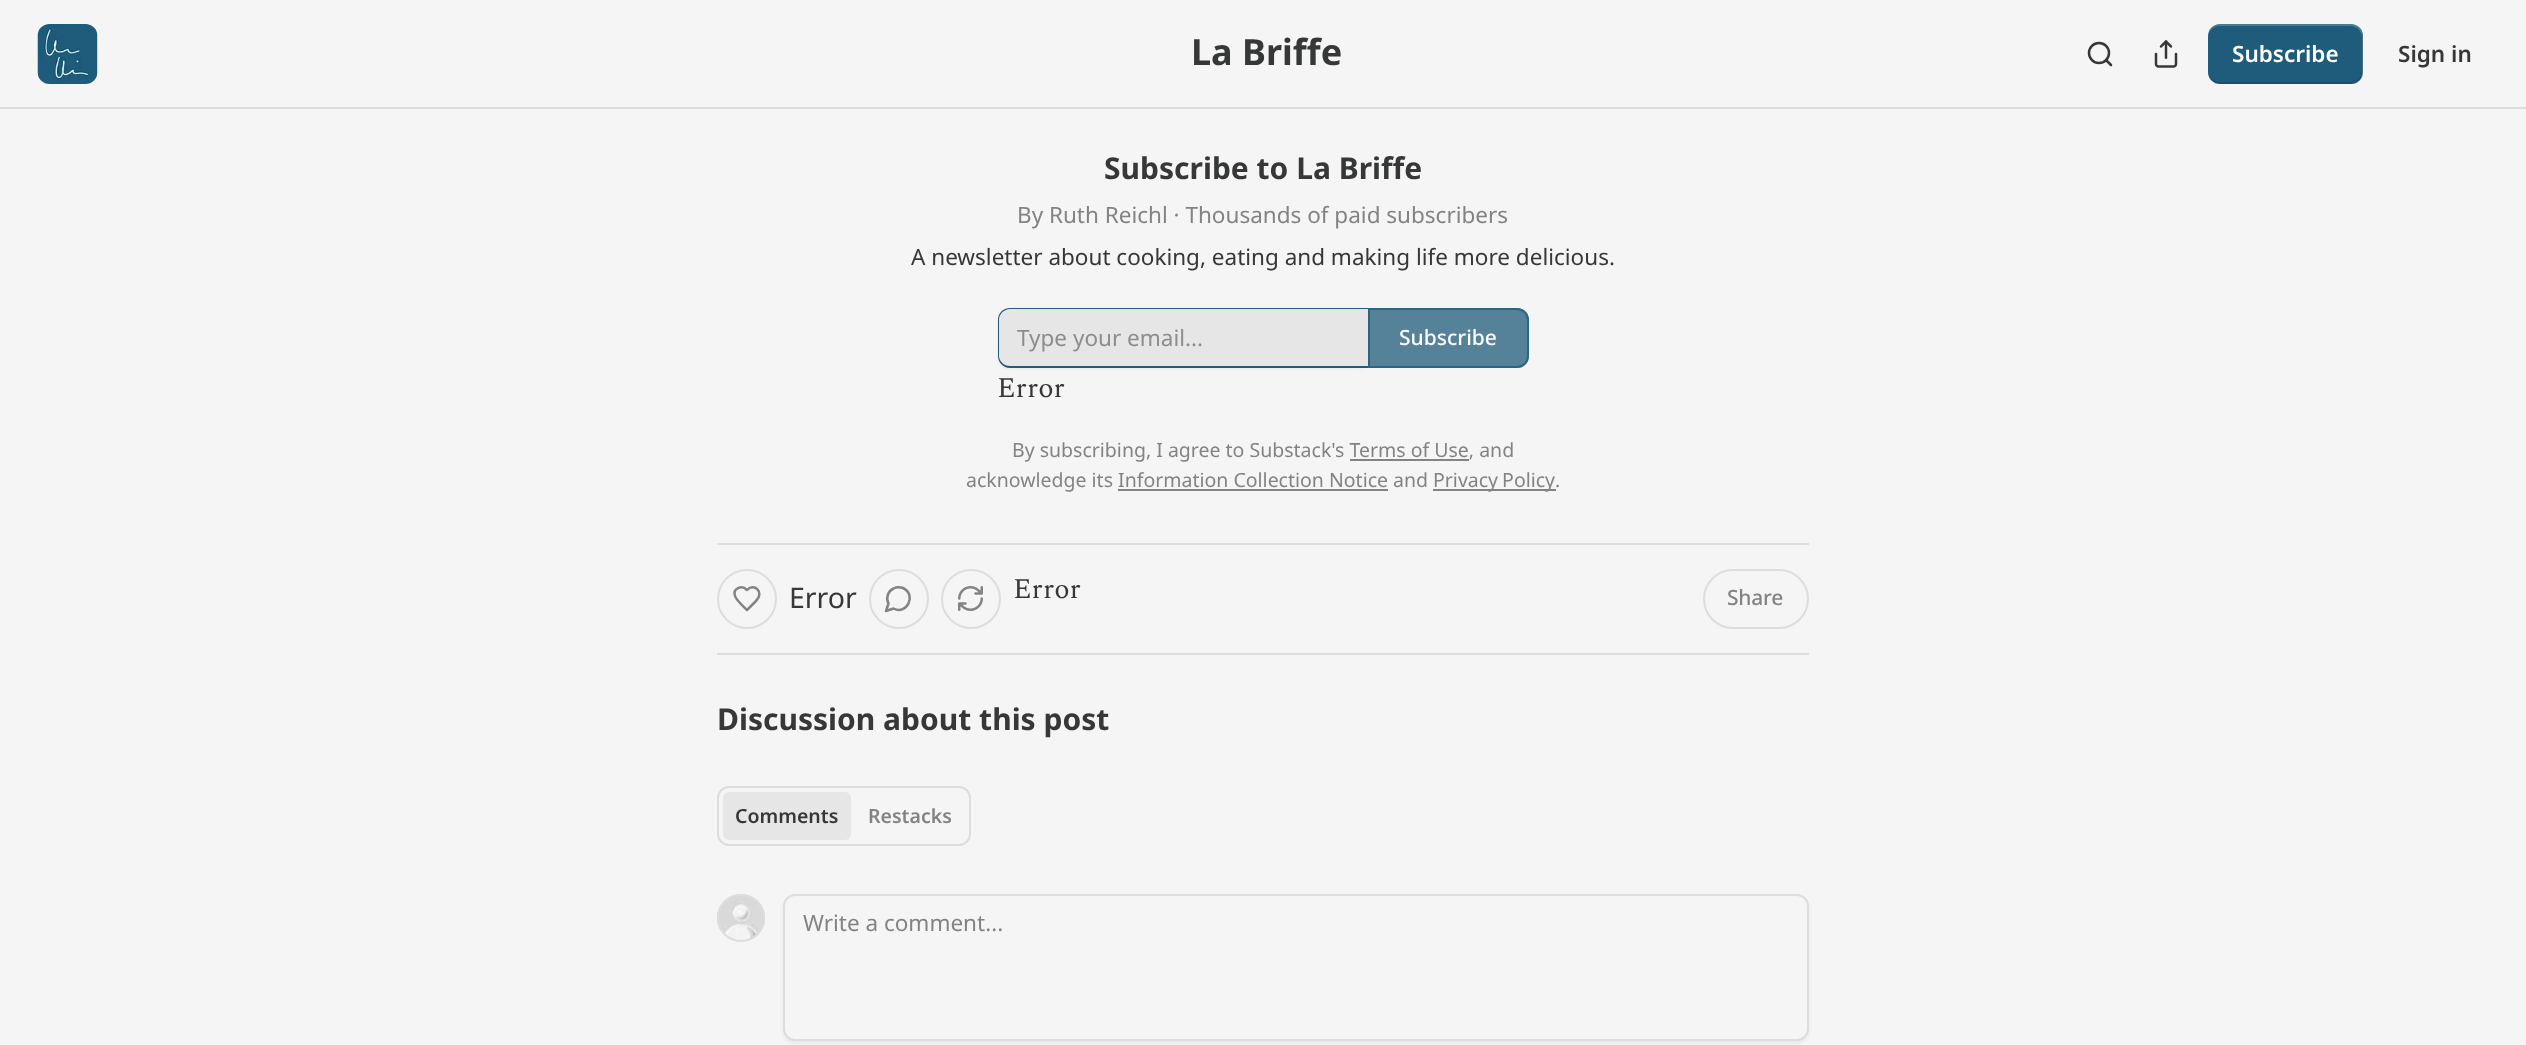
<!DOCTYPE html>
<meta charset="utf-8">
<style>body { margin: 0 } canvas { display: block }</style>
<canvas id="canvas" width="2526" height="1045"></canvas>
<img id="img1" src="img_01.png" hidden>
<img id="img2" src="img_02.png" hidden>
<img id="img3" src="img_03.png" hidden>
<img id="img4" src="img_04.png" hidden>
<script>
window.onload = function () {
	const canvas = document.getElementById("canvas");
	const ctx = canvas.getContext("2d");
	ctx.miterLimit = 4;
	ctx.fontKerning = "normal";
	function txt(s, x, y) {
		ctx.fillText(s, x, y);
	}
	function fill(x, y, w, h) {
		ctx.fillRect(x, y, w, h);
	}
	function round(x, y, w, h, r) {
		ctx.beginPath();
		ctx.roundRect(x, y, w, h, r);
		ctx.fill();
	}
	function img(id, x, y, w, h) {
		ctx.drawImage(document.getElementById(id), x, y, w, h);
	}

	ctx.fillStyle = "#F5F5F5";
	fill(0, 0, 2526, 1045);
	ctx.fillStyle = "#DDDDDD";
	fill(0, 107, 2526, 2);
	ctx.fillStyle = "#FFFFFF";
	round(38, 24, 60, 60, 12);
	img("img1", 37, 24, 61, 60);
	ctx.beginPath();
	ctx.arc(2099, 53, 10, 0, Math.PI * 2);
	ctx.strokeStyle = "#363737";
	ctx.lineWidth = 2.5;
	ctx.stroke();
	ctx.beginPath();
	ctx.moveTo(2111, 65);
	ctx.lineTo(2106, 60);
	ctx.lineCap = "round";
	ctx.lineJoin = "round";
	ctx.stroke();
	img("img2", 2154, 40, 24, 28);
	ctx.fillStyle = "#1F5B7A";
	round(2208, 24, 155, 60, 12);
	ctx.fillStyle = "rgba(0, 0, 0, 0.1)";
	ctx.beginPath();
	ctx.moveTo(2208, 70);
	ctx.lineTo(2208, 72);
	ctx.bezierCurveTo(2208, 79, 2213, 84, 2220, 84);
	ctx.lineTo(2351, 84);
	ctx.bezierCurveTo(2358, 84, 2363, 79, 2363, 72);
	ctx.lineTo(2363, 36);
	ctx.bezierCurveTo(2363, 34, 2362, 31, 2361, 29);
	ctx.lineTo(2362, 34);
	ctx.lineTo(2362, 70);
	ctx.bezierCurveTo(2362, 77, 2357, 82, 2350, 82);
	ctx.lineTo(2220, 82);
	ctx.bezierCurveTo(2213, 82, 2208, 77, 2208, 70);
	ctx.closePath();
	ctx.fill();
	ctx.fillStyle = "rgba(255, 255, 255, 0.2)";
	ctx.beginPath();
	ctx.moveTo(2220, 26);
	ctx.lineTo(2350, 26);
	ctx.bezierCurveTo(2357, 26, 2362, 31, 2362, 38);
	ctx.lineTo(2362, 74);
	ctx.lineTo(2361, 79);
	ctx.bezierCurveTo(2362, 77, 2363, 74, 2363, 72);
	ctx.lineTo(2363, 36);
	ctx.bezierCurveTo(2363, 29, 2358, 24, 2351, 24);
	ctx.lineTo(2220, 24);
	ctx.bezierCurveTo(2213, 24, 2208, 29, 2208, 36);
	ctx.lineTo(2208, 38);
	ctx.bezierCurveTo(2208, 31, 2213, 26, 2220, 26);
	ctx.closePath();
	ctx.fill();
	ctx.fillStyle = "rgba(0, 0, 0, 0.05)";
	ctx.filter = "blur(1.5px)";
	ctx.beginPath();
	ctx.roundRect(998, 309, 370, 60, 12);
	ctx.fill();
	ctx.filter = "none";
	ctx.fillStyle = "#E6E6E6";
	ctx.beginPath();
	ctx.roundRect(999, 309, 369, 57, [11, 0, 0, 11]);
	ctx.fill();
	ctx.fillStyle = "#1F5B7A";
	ctx.beginPath();
	ctx.moveTo(1010, 308);
	ctx.lineTo(1368, 308);
	ctx.lineTo(1368, 368);
	ctx.lineTo(1010, 368);
	ctx.bezierCurveTo(1003, 368, 998, 362, 998, 356);
	ctx.lineTo(998, 320);
	ctx.bezierCurveTo(998, 313, 1003, 308, 1010, 308);
	ctx.closePath();
	ctx.moveTo(1010, 309);
	ctx.lineTo(1368, 309);
	ctx.lineTo(1368, 366);
	ctx.lineTo(1010, 366);
	ctx.bezierCurveTo(1004, 366, 999, 361, 999, 356);
	ctx.lineTo(999, 320);
	ctx.bezierCurveTo(999, 314, 1004, 309, 1010, 309);
	ctx.closePath();
	ctx.fill("evenodd");
	ctx.fillStyle = "rgba(31, 91, 122, 0.75)";
	ctx.beginPath();
	ctx.roundRect(1368, 308, 161, 60, [0, 12, 12, 0]);
	ctx.fill();
	ctx.beginPath();
	ctx.roundRect(1369, 309, 159, 58, [0, 11, 11, 0]);
	ctx.strokeStyle = "rgba(31, 91, 122, 0.75)";
	ctx.lineWidth = 2;
	ctx.lineJoin = "miter";
	ctx.stroke();
	ctx.fillStyle = "#828383";
	fill(1350, 459, 119, 2);
	fill(1433, 489, 123, 2);
	fill(1118, 489, 270, 2);
	ctx.fillStyle = "#DDDDDD";
	fill(717, 543, 1092, 2);
	fill(717, 653, 1092, 2);
	ctx.beginPath();
	ctx.arc(747, 599, 29, 0, Math.PI * 2);
	ctx.strokeStyle = "#DDDDDD";
	ctx.stroke();
	ctx.beginPath();
	ctx.moveTo(756, 601);
	ctx.bezierCurveTo(765, 592, 754, 582.5, 747, 590);
	ctx.bezierCurveTo(741.5, 584.5, 732.5, 588.5, 735, 596);
	ctx.bezierCurveTo(736, 600, 744, 607, 747, 610);
	ctx.closePath();
	ctx.strokeStyle = "#828383";
	ctx.lineWidth = 2.5;
	ctx.lineJoin = "round";
	ctx.stroke();
	ctx.beginPath();
	ctx.arc(899, 599, 29, 0, Math.PI * 2);
	ctx.strokeStyle = "#DDDDDD";
	ctx.lineWidth = 2;
	ctx.stroke();
	ctx.beginPath();
	ctx.moveTo(893.5, 608.5);
	ctx.bezierCurveTo(907, 615.5, 917, 594.5, 903, 588);
	ctx.bezierCurveTo(900, 587, 896.5, 587, 893.5, 588.5);
	ctx.bezierCurveTo(888, 591, 885.5, 598, 888.5, 603.5);
	ctx.lineTo(886, 611);
	ctx.closePath();
	ctx.strokeStyle = "#828383";
	ctx.lineWidth = 2.5;
	ctx.stroke();
	ctx.beginPath();
	ctx.arc(971, 599, 29, 0, Math.PI * 2);
	ctx.strokeStyle = "#DDDDDD";
	ctx.lineWidth = 2;
	ctx.stroke();
	img("img3", 958, 586, 25, 25);
	ctx.beginPath();
	ctx.roundRect(1704, 570, 104, 58, 29);
	ctx.lineJoin = "miter";
	ctx.stroke();
	ctx.beginPath();
	ctx.roundRect(718, 787, 252, 58, 11);
	ctx.stroke();
	ctx.fillStyle = "#E6E6E6";
	round(723, 792, 128, 48, 6);
	ctx.beginPath();
	ctx.arc(741, 918, 23, 0, Math.PI * 2);
	ctx.stroke();
	img("img4", 717, 894, 48, 48);
	ctx.beginPath();
	ctx.arc(741, 918, 23, 0, Math.PI * 2);
	ctx.stroke();
	ctx.fillStyle = "rgba(0, 0, 0, 0.05)";
	ctx.filter = "blur(1.5px)";
	ctx.beginPath();
	ctx.roundRect(783, 896, 1026, 147, 12);
	ctx.fill();
	ctx.filter = "none";
	ctx.fillStyle = "#F5F5F5";
	ctx.beginPath();
	ctx.roundRect(784, 895, 1024, 145, 11);
	ctx.fill();
	ctx.stroke();
	ctx.font = "bold 36px Noto Sans";
	ctx.fillStyle = "#363737";
	txt("La Briffe", 1191, 65);
	ctx.font = "600 22.5px Noto Sans";
	ctx.fillStyle = "#FDFDFD";
	txt("Subscribe", 2232, 62);
	ctx.fillStyle = "#363737";
	txt("Sign in", 2398, 62);
	ctx.font = "bold 30px Noto Sans";
	txt("Subscribe to La Briffe", 1104, 179);
	ctx.font = "22.5px Noto Sans";
	ctx.fillStyle = "#828383";
	txt("By Ruth Reichl · Thousands of paid subscribers", 1017, 223);
	ctx.fillStyle = "#363737";
	txt("A newsletter about cooking, eating and making life more delicious.", 911, 265);
	ctx.fillStyle = "#8D8D8D";
	txt("Type your email...", 1017, 346);
	ctx.font = "500 21px Noto Sans";
	ctx.fillStyle = "#FDFDFD";
	txt("Subscribe", 1399, 345);
	ctx.font = "28.5px Spectral";
	ctx.fillStyle = "#363737";
	txt("Error", 997, 397);
	ctx.font = "19.5px Noto Sans";
	ctx.fillStyle = "#828383";
	txt("By subscribing, I agree to Substack's Terms of Use, and", 1012, 457);
	txt("acknowledge its Information Collection Notice and", 966, 487);
	ctx.wordSpacing = "-1px";
	txt("Privacy Policy", 1433, 487);
	ctx.wordSpacing = "0px";
	txt(".", 1555, 487);
	ctx.font = "28.5px Noto Sans";
	ctx.fillStyle = "#363737";
	txt("Error", 789, 608);
	ctx.font = "28.5px Spectral";
	txt("Error", 1013, 598);
	ctx.letterSpacing = "-0.25px";
	ctx.font = "500 21px Noto Sans";
	ctx.fillStyle = "#828383";
	txt("Share", 1727, 605);
	ctx.letterSpacing = "0px";
	ctx.font = "bold 30px Noto Sans";
	ctx.fillStyle = "#363737";
	txt("Discussion about this post", 717, 730);
	ctx.font = "600 19.5px Noto Sans";
	txt("Comments", 735, 823);
	ctx.fillStyle = "#828383";
	txt("Restacks", 868, 823);
	ctx.font = "22.5px Noto Sans";
	txt("Write a comment...", 803, 931);
};
</script>
